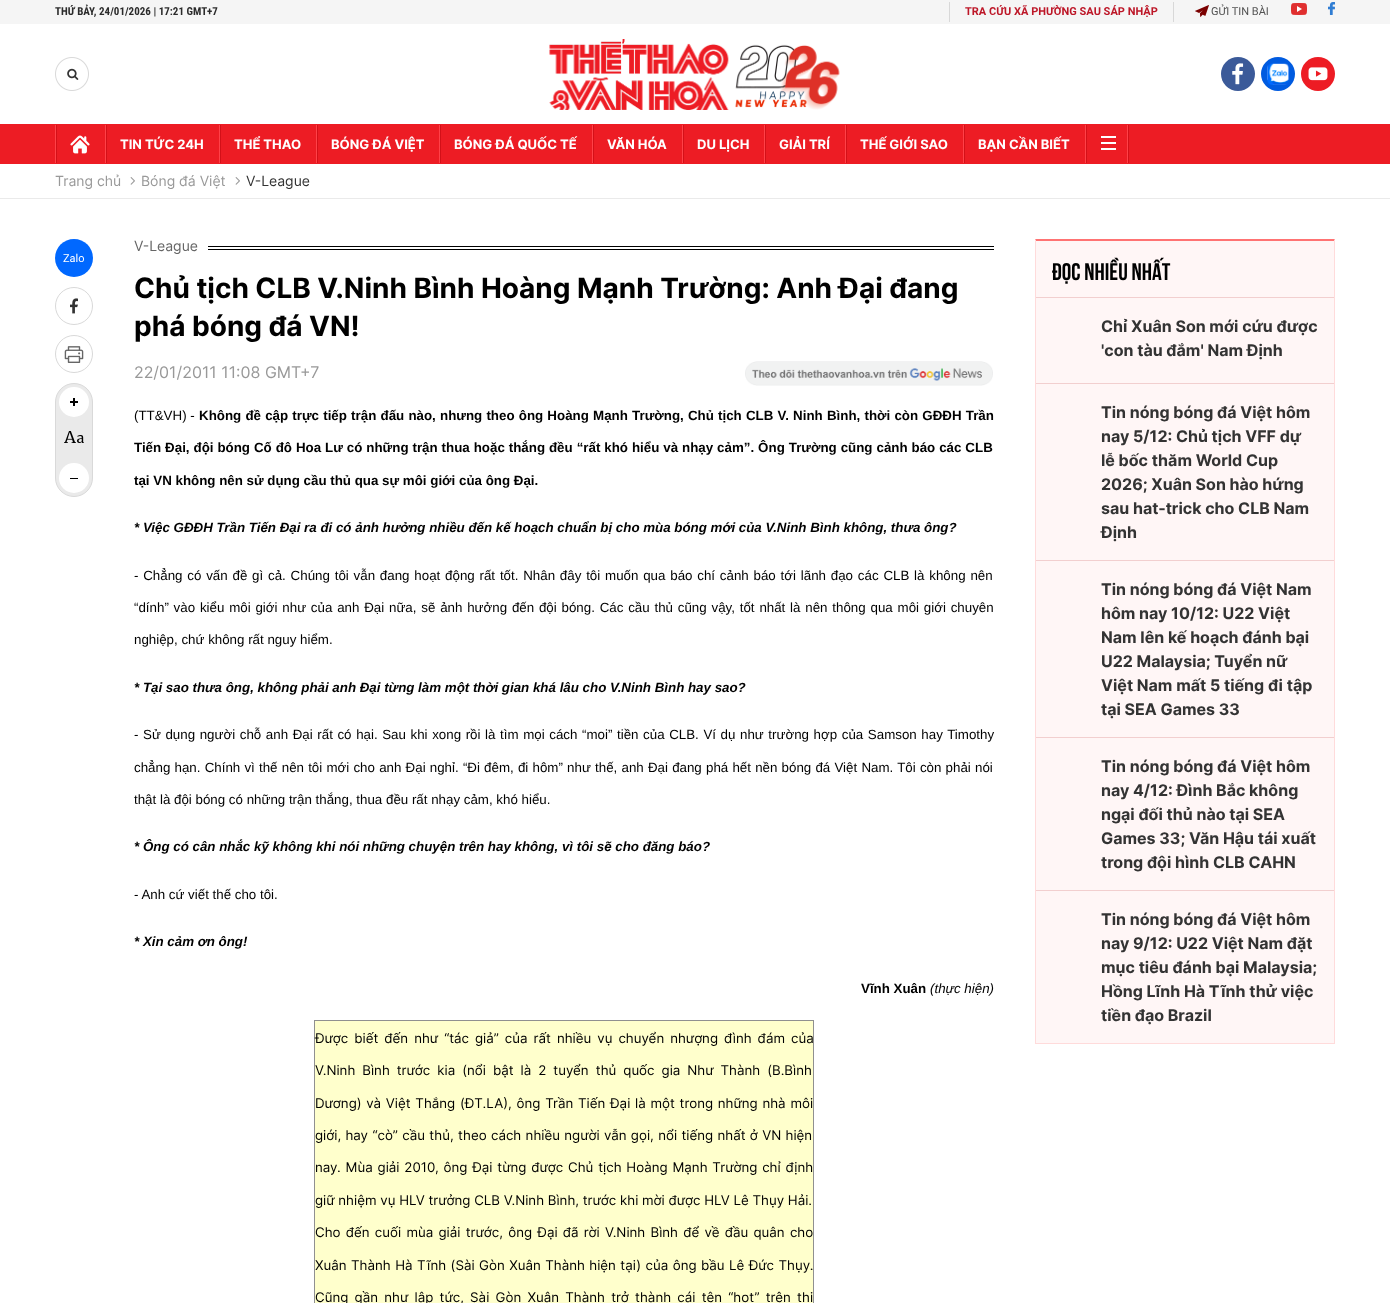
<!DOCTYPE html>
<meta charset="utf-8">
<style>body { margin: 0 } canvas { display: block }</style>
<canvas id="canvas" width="1390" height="1303"></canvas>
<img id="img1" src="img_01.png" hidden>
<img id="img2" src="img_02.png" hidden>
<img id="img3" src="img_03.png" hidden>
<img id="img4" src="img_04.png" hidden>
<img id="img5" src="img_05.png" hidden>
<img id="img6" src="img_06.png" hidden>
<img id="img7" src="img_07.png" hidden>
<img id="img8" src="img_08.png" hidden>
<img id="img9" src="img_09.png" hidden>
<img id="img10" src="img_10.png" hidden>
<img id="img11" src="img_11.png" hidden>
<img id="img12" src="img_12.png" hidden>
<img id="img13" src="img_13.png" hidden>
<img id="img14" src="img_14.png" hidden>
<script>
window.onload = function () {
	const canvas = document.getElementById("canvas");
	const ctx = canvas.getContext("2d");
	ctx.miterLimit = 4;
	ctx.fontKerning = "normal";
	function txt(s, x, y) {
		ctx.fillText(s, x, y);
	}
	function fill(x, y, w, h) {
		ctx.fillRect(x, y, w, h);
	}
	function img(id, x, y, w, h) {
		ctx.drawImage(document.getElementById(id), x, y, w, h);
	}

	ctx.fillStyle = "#FFFFFF";
	fill(0, 0, 1390, 1303);
	ctx.fillStyle = "#F5F5F5";
	fill(0, 0, 1390, 24);
	ctx.fillStyle = "#D8D8D8";
	fill(1173, 2, 1, 20);
	fill(949, 2, 1, 20);
	img("img1", 1195, 5, 14, 12);
	img("img2", 1291, 3, 16, 12);
	img("img3", 1328, 2, 7, 13);
	img("img4", 55, 57, 34, 34);
	img("img5", 549, 39, 291, 71);
	ctx.fillStyle = "#3B5A99";
	ctx.beginPath();
	ctx.arc(1238, 74, 17, 0, Math.PI * 2);
	ctx.fill();
	img("img6", 1232, 63, 12, 22);
	ctx.fillStyle = "#005BE0";
	ctx.beginPath();
	ctx.arc(1278, 74, 17, 0, Math.PI * 2);
	ctx.fill();
	img("img7", 1267, 63, 22, 22);
	ctx.fillStyle = "#ED1C24";
	ctx.beginPath();
	ctx.arc(1318, 74, 17, 0, Math.PI * 2);
	ctx.fill();
	img("img8", 1308, 67, 20, 14);
	fill(0, 124, 1390, 40);
	ctx.fillStyle = "#FF4148";
	fill(55, 125, 1, 38);
	ctx.fillStyle = "#D31018";
	fill(56, 125, 1, 38);
	img("img9", 70, 135, 20, 19);
	ctx.fillStyle = "#FF4148";
	fill(105, 125, 1, 38);
	ctx.fillStyle = "#D31018";
	fill(106, 125, 1, 38);
	ctx.fillStyle = "#FF4148";
	fill(219, 125, 1, 38);
	ctx.fillStyle = "#D31018";
	fill(220, 125, 1, 38);
	ctx.fillStyle = "#FF4148";
	fill(316, 125, 1, 38);
	ctx.fillStyle = "#D31018";
	fill(317, 125, 1, 38);
	ctx.fillStyle = "#FF4148";
	fill(439, 125, 1, 38);
	ctx.fillStyle = "#D31018";
	fill(440, 125, 1, 38);
	ctx.fillStyle = "#FF4148";
	fill(592, 125, 1, 38);
	ctx.fillStyle = "#D31018";
	fill(593, 125, 1, 38);
	ctx.fillStyle = "#FF4148";
	fill(682, 125, 1, 38);
	ctx.fillStyle = "#D31018";
	fill(683, 125, 1, 38);
	ctx.fillStyle = "#FF4148";
	fill(764, 125, 1, 38);
	ctx.fillStyle = "#D31018";
	fill(765, 125, 1, 38);
	ctx.fillStyle = "#FF4148";
	fill(845, 125, 1, 38);
	ctx.fillStyle = "#D31018";
	fill(846, 125, 1, 38);
	ctx.fillStyle = "#FF4148";
	fill(963, 125, 1, 38);
	ctx.fillStyle = "#D31018";
	fill(964, 125, 1, 38);
	ctx.fillStyle = "#FF4148";
	fill(1085, 125, 1, 38);
	ctx.fillStyle = "#D31018";
	fill(1086, 125, 1, 38);
	ctx.fillStyle = "#FFFFFF";
	fill(1101, 136, 15, 2);
	fill(1101, 142, 15, 2);
	fill(1101, 148, 15, 2);
	ctx.fillStyle = "#FF4148";
	fill(1127, 125, 1, 38);
	ctx.fillStyle = "#D31018";
	fill(1128, 125, 1, 38);
	ctx.fillStyle = "#EAEAEA";
	fill(0, 198, 1390, 1);
	img("img10", 130, 177, 5, 8);
	img("img10", 235, 177, 5, 8);
	ctx.fillStyle = "#0068FF";
	ctx.beginPath();
	ctx.arc(74, 258, 19, 0, Math.PI * 2);
	ctx.fill();
	ctx.beginPath();
	ctx.arc(74, 306, 18.5, 0, Math.PI * 2);
	ctx.strokeStyle = "#D9D9D9";
	ctx.stroke();
	img("img11", 70, 298, 8, 16);
	ctx.beginPath();
	ctx.arc(74, 354, 18.5, 0, Math.PI * 2);
	ctx.stroke();
	img("img12", 64, 346, 20, 17);
	ctx.fillStyle = "#EAEAEA";
	ctx.beginPath();
	ctx.roundRect(55.5, 383.5, 37, 113, 18.5);
	ctx.fill();
	ctx.stroke();
	ctx.fillStyle = "#FFFFFF";
	ctx.beginPath();
	ctx.arc(74, 402, 15, 0, Math.PI * 2);
	ctx.fill();
	ctx.fillStyle = "#000000";
	fill(70, 401, 8, 2);
	fill(73, 398, 2, 8);
	img("img13", 64, 431, 20, 12);
	ctx.fillStyle = "#FFFFFF";
	ctx.beginPath();
	ctx.arc(74, 478, 15, 0, Math.PI * 2);
	ctx.fill();
	ctx.fillStyle = "#000000";
	fill(70, 478, 8, 1);
	fill(208, 246, 786, 1);
	fill(208, 249, 786, 1);
	img("img14", 745, 361, 248, 25);
	ctx.fillStyle = "#FFFFCC";
	fill(315, 1021, 498, 282);
	ctx.fillStyle = "#909090";
	fill(314, 1020, 500, 1);
	fill(813, 1020, 1, 283);
	fill(314, 1020, 1, 283);
	ctx.fillStyle = "#FFF6F6";
	fill(1036, 241, 298, 802);
	ctx.fillStyle = "#FF7373";
	ctx.beginPath();
	ctx.moveTo(1035, 239);
	ctx.lineTo(1335, 239);
	ctx.lineTo(1334, 241);
	ctx.lineTo(1036, 241);
	ctx.closePath();
	ctx.fill();
	ctx.fillStyle = "#FFDBDB";
	ctx.beginPath();
	ctx.moveTo(1335, 239);
	ctx.lineTo(1335, 1044);
	ctx.lineTo(1334, 1043);
	ctx.lineTo(1334, 241);
	ctx.closePath();
	ctx.fill();
	fill(1035, 1043, 300, 1);
	ctx.beginPath();
	ctx.moveTo(1035, 1044);
	ctx.lineTo(1035, 239);
	ctx.lineTo(1036, 241);
	ctx.lineTo(1036, 1043);
	ctx.closePath();
	ctx.fill();
	ctx.fillStyle = "#F2CFCF";
	fill(1036, 297, 298, 1);
	fill(1036, 383, 298, 1);
	fill(1036, 560, 298, 1);
	fill(1036, 737, 298, 1);
	fill(1036, 890, 298, 1);
	ctx.font = "bold 11px Roboto Condensed";
	ctx.fillStyle = "#2B2B2B";
	txt("THỨ BẢY, 24/01/2026 | 17:21 GMT+7", 55, 15);
	ctx.font = "bold 11px Roboto";
	ctx.fillStyle = "#BD1728";
	txt("TRA CỨU XÃ PHƯỜNG SAU SÁP NHẬP", 965, 15);
	ctx.font = "11px Roboto";
	ctx.fillStyle = "#525252";
	txt("GỬI TIN BÀI", 1211, 15);
	ctx.font = "bold 13px Inter";
	ctx.fillStyle = "#FFFFFF";
	txt("TIN TỨC 24H", 120, 149);
	txt("THỂ THAO", 234, 149);
	txt("BÓNG ĐÁ VIỆT", 331, 149);
	txt("BÓNG ĐÁ QUỐC TẾ", 454, 149);
	txt("VĂN HÓA", 607, 149);
	txt("DU LỊCH", 697, 149);
	txt("GIẢI TRÍ", 779, 149);
	txt("THẾ GIỚI SAO", 860, 149);
	txt("BẠN CẦN BIẾT", 978, 149);
	ctx.font = "14px Inter";
	ctx.fillStyle = "#999999";
	txt("Trang chủ", 55, 186);
	txt("Bóng đá Việt", 141, 186);
	ctx.fillStyle = "#333333";
	txt("V-League", 246, 186);
	ctx.font = "11px Roboto";
	ctx.fillStyle = "#FFFFFF";
	txt("Zalo", 63, 262);
	ctx.font = "14px Inter";
	ctx.fillStyle = "#666666";
	txt("V-League", 134, 251);
	ctx.font = "bold 28px Inter";
	ctx.fillStyle = "#000000";
	txt("Chủ tịch CLB V.Ninh Bình Hoàng Mạnh Trường: Anh Đại đang", 134, 298);
	txt("phá bóng đá VN!", 134, 336);
	ctx.font = "16px Inter";
	ctx.fillStyle = "#999999";
	txt("22/01/2011 11:08 GMT+7", 134, 378);
	ctx.font = "13.33px Liberation Sans";
	ctx.fillStyle = "#000000";
	txt("(TT&VH) -", 134, 420);
	ctx.wordSpacing = "0.5px";
	ctx.font = "bold 13.33px Liberation Sans";
	txt("Không đề cập trực tiếp trận đấu nào, nhưng theo ông Hoàng Mạnh Trường, Chủ tịch CLB V. Ninh Bình, thời còn GĐĐH Trần", 199, 420);
	ctx.wordSpacing = "0.25px";
	txt("Tiến Đại, đội bóng Cố đô Hoa Lư có những trận thua hoặc thắng đều “rất khó hiểu và nhạy cảm”. Ông Trường cũng cảnh báo các CLB", 134, 452);
	ctx.wordSpacing = "0px";
	txt("tại VN không nên sử dụng cầu thủ qua sự môi giới của ông Đại.", 134, 485);
	ctx.font = "italic bold 13.33px Liberation Sans";
	txt("* Việc GĐĐH Trần Tiến Đại ra đi có ảnh hưởng nhiều đến kế hoạch chuẩn bị cho mùa bóng mới của V.Ninh Bình không, thưa ông?", 134, 532);
	ctx.wordSpacing = "1.1px";
	ctx.font = "13.33px Liberation Sans";
	txt("- Chẳng có vấn đề gì cả. Chúng tôi vẫn đang hoạt động rất tốt. Nhân đây tôi muốn qua báo chí cảnh báo tới lãnh đạo các CLB là không nên", 134, 580);
	txt("“dính” vào kiểu môi giới như của anh Đại nữa, sẽ ảnh hưởng đến đội bóng. Các cầu thủ cũng vậy, tốt nhất là nên thông qua môi giới chuyên", 134, 612);
	ctx.wordSpacing = "0px";
	txt("nghiệp, chứ không rất nguy hiểm.", 134, 644);
	ctx.font = "italic bold 13.33px Liberation Sans";
	txt("* Tại sao thưa ông, không phải anh Đại từng làm một thời gian khá lâu cho V.Ninh Bình hay sao?", 134, 692);
	ctx.wordSpacing = "0.9px";
	ctx.font = "13.33px Liberation Sans";
	txt("- Sử dụng người chỗ anh Đại rất có hại. Sau khi xong rồi là tìm mọi cách “moi” tiền của CLB. Ví dụ như trường hợp của Samson hay Timothy", 134, 739);
	ctx.wordSpacing = "0.5px";
	txt("chẳng hạn. Chính vì thế nên tôi mới cho anh Đại nghỉ. “Đi đêm, đi hôm” như thế, anh Đại đang phá hết nền bóng đá Việt Nam. Tôi còn phải nói", 134, 772);
	ctx.wordSpacing = "0px";
	txt("thật là đội bóng có những trận thắng, thua đều rất nhạy cảm, khó hiểu.", 134, 804);
	ctx.font = "italic bold 13.33px Liberation Sans";
	txt("* Ông có cân nhắc kỹ không khi nói những chuyện trên hay không, vì tôi sẽ cho đăng báo?", 134, 851);
	ctx.font = "13.33px Liberation Sans";
	txt("- Anh cứ viết thế cho tôi.", 134, 899);
	ctx.font = "italic bold 13.33px Liberation Sans";
	txt("* Xin cảm ơn ông!", 134, 946);
	ctx.font = "bold 13.33px Liberation Sans";
	txt("Vĩnh Xuân", 861, 993);
	ctx.font = "italic 13.33px Liberation Sans";
	txt("(thực hiện)", 930, 993);
	ctx.wordSpacing = "2.25px";
	ctx.font = "13.33px Inter";
	txt("Được biết đến như “tác giả” của rất nhiều vụ chuyển nhượng đình đám của", 315, 1043);
	ctx.wordSpacing = "3.25px";
	txt("V.Ninh Bình trước kia (nổi bật là 2 tuyển thủ quốc gia Như Thành (B.Bình", 315, 1075);
	ctx.wordSpacing = "1px";
	txt("Dương) và Việt Thắng (ĐT.LA), ông Trần Tiến Đại là một trong những nhà môi", 315, 1108);
	ctx.wordSpacing = "0.6px";
	txt("giới, hay “cò” cầu thủ, theo cách nhiều người vẫn gọi, nổi tiếng nhất ở VN hiện", 315, 1140);
	ctx.wordSpacing = "1.1px";
	txt("nay. Mùa giải 2010, ông Đại từng được Chủ tịch Hoàng Mạnh Trường chỉ định", 315, 1172);
	ctx.wordSpacing = "0px";
	txt("giữ nhiệm vụ HLV trưởng CLB V.Ninh Bình, trước khi mời được HLV Lê Thụy Hải.", 315, 1205);
	ctx.wordSpacing = "1.5px";
	txt("Cho đến cuối mùa giải trước, ông Đại đã rời V.Ninh Bình để về đầu quân cho", 315, 1237);
	ctx.wordSpacing = "0.7px";
	txt("Xuân Thành Hà Tĩnh (Sài Gòn Xuân Thành hiện tại) của ông bầu Lê Đức Thụy.", 315, 1270);
	ctx.wordSpacing = "2.5px";
	txt("Cũng gần như lập tức, Sài Gòn Xuân Thành trở thành cái tên “hot” trên thị", 315, 1302);
	ctx.wordSpacing = "0px";
	ctx.font = "24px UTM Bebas";
	txt("ĐỌC NHIỀU NHẤT", 1052, 280);
	ctx.font = "bold 16px Inter";
	ctx.fillStyle = "#333333";
	txt("Chỉ Xuân Son mới cứu được", 1101, 332);
	txt("'con tàu đắm' Nam Định", 1101, 356);
	txt("Tin nóng bóng đá Việt hôm", 1101, 418);
	txt("nay 5/12: Chủ tịch VFF dự", 1101, 442);
	txt("lễ bốc thăm World Cup", 1101, 466);
	txt("2026; Xuân Son hào hứng", 1101, 490);
	txt("sau hat-trick cho CLB Nam", 1101, 514);
	txt("Định", 1101, 538);
	txt("Tin nóng bóng đá Việt Nam", 1101, 595);
	txt("hôm nay 10/12: U22 Việt", 1101, 619);
	txt("Nam lên kế hoạch đánh bại", 1101, 643);
	txt("U22 Malaysia; Tuyển nữ", 1101, 667);
	txt("Việt Nam mất 5 tiếng đi tập", 1101, 691);
	txt("tại SEA Games 33", 1101, 715);
	txt("Tin nóng bóng đá Việt hôm", 1101, 772);
	txt("nay 4/12: Đình Bắc không", 1101, 796);
	txt("ngại đối thủ nào tại SEA", 1101, 820);
	txt("Games 33; Văn Hậu tái xuất", 1101, 844);
	txt("trong đội hình CLB CAHN", 1101, 868);
	txt("Tin nóng bóng đá Việt hôm", 1101, 925);
	txt("nay 9/12: U22 Việt Nam đặt", 1101, 949);
	txt("mục tiêu đánh bại Malaysia;", 1101, 973);
	txt("Hồng Lĩnh Hà Tĩnh thử việc", 1101, 997);
	txt("tiền đạo Brazil", 1101, 1021);
};
</script>
